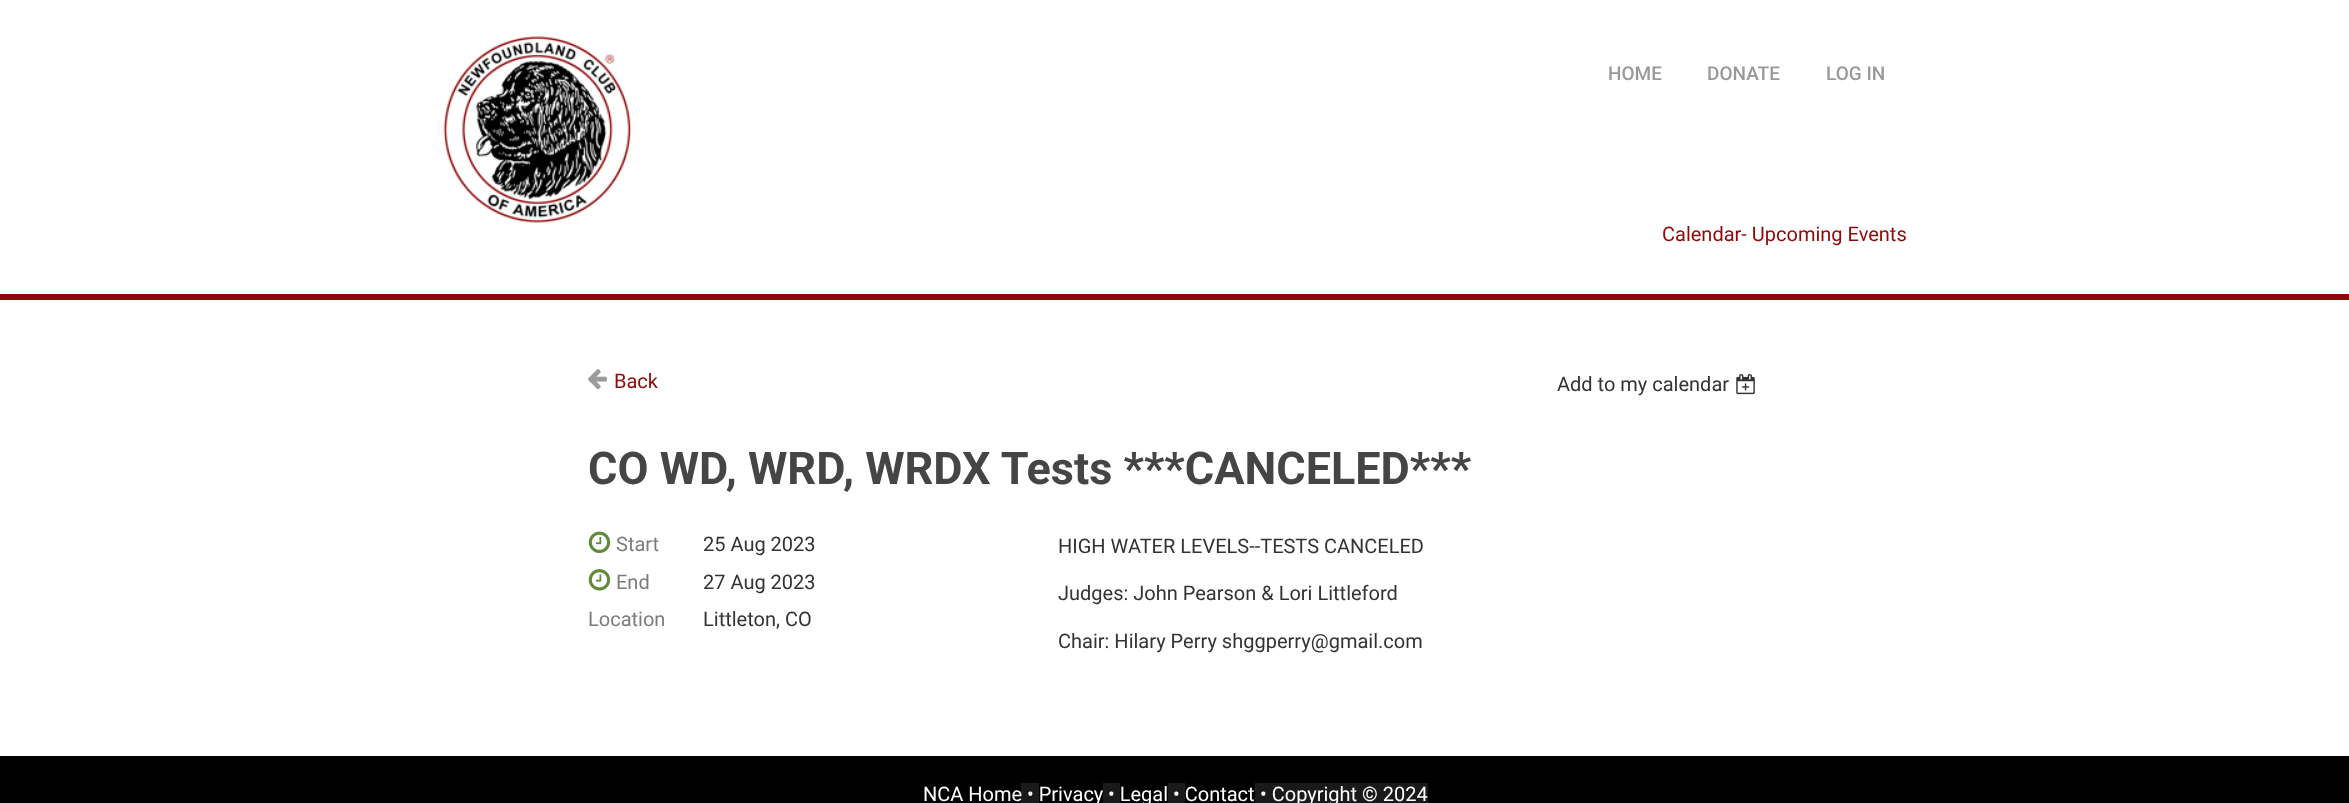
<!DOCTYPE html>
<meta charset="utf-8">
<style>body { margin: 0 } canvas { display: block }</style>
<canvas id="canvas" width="2349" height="803"></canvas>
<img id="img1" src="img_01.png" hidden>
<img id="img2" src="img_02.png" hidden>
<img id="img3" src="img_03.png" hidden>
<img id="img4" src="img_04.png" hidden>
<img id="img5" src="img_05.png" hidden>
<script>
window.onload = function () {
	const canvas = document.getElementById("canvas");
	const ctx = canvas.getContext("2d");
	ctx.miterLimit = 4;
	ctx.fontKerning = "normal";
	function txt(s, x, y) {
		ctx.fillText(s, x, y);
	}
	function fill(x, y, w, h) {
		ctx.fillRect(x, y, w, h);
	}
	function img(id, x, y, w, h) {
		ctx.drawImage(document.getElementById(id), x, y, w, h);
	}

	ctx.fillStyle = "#FFFFFF";
	fill(0, 0, 2349, 803);
	ctx.fillStyle = "#900909";
	fill(0, 294, 2349, 6);
	img("img1", 443, 36, 189, 187);
	img("img2", 588, 369, 19, 21);
	img("img3", 1736, 374, 19, 21);
	img("img4", 588, 531, 23, 22);
	img("img5", 588, 569, 23, 22);
	ctx.fillStyle = "#000000";
	fill(0, 756, 2349, 47);
	ctx.fillStyle = "#1A1A1A";
	fill(1021, 783, 18, 20);
	fill(1103, 783, 17, 20);
	fill(1168, 783, 17, 20);
	fill(1255, 783, 173, 20);
	ctx.font = "500 19px Roboto";
	ctx.fillStyle = "#999999";
	txt("HOME", 1608, 80);
	txt("DONATE", 1707, 80);
	txt("LOG IN", 1826, 80);
	ctx.font = "20px Roboto";
	ctx.fillStyle = "#900909";
	txt("Calendar- Upcoming Events", 1662, 241);
	txt("Back", 614, 388);
	ctx.fillStyle = "#333333";
	txt("Add to my calendar", 1557, 391);
	ctx.font = "bold 45px Roboto";
	ctx.fillStyle = "#454545";
	txt("CO WD, WRD, WRDX Tests ***CANCELED***", 588, 484);
	ctx.font = "20px Roboto";
	ctx.fillStyle = "#7C7C7C";
	txt("Start", 616, 551);
	ctx.fillStyle = "#333333";
	txt("25 Aug 2023", 703, 551);
	ctx.fillStyle = "#7C7C7C";
	txt("End", 616, 589);
	ctx.fillStyle = "#333333";
	txt("27 Aug 2023", 703, 589);
	ctx.fillStyle = "#7C7C7C";
	txt("Location", 588, 626);
	ctx.fillStyle = "#333333";
	txt("Littleton, CO", 703, 626);
	txt("HIGH WATER LEVELS--TESTS CANCELED", 1058, 553);
	txt("Judges: John Pearson & Lori Littleford", 1058, 600);
	txt("Chair: Hilary Perry shggperry@gmail.com", 1058, 648);
	ctx.fillStyle = "#FFFFFF";
	txt("NCA Home", 923, 801);
	txt("• Privacy", 1027, 801);
	txt("• Legal", 1108, 801);
	txt("• Contact", 1173, 801);
	txt("• Copyright © 2024", 1260, 801);
};
</script>
